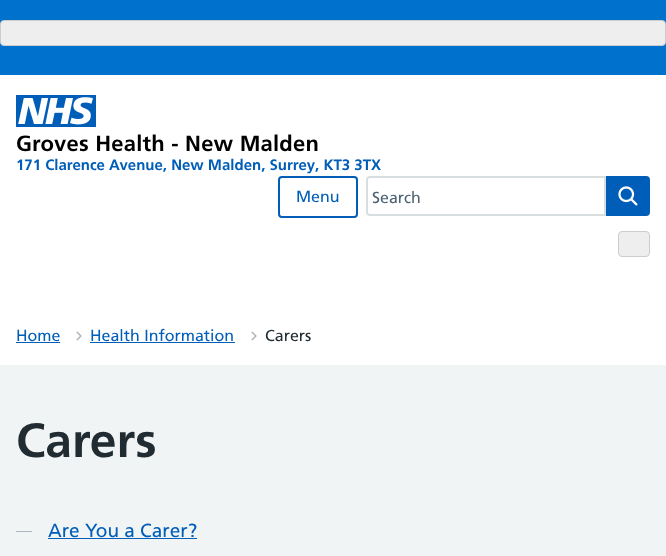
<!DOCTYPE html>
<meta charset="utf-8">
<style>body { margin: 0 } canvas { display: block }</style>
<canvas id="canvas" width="666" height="556"></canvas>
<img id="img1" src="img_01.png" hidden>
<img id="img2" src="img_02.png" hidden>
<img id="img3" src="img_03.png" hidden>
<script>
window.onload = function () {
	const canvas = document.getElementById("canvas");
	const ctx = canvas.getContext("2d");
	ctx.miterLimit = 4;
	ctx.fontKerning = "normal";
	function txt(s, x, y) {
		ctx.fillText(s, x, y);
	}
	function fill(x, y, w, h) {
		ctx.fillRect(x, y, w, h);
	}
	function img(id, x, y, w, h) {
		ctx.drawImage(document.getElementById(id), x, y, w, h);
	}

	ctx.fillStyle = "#F0F4F5";
	fill(0, 0, 666, 556);
	ctx.fillStyle = "#FFFFFF";
	fill(0, 75, 666, 290);
	ctx.fillStyle = "#0072CE";
	fill(0, 0, 666, 75);
	ctx.fillStyle = "#EEEEEE";
	ctx.beginPath();
	ctx.roundRect(0.5, 20.5, 665, 25, 3.5);
	ctx.fill();
	ctx.strokeStyle = "#CCCCCC";
	ctx.stroke();
	img("img1", 16, 95, 80, 32);
	ctx.beginPath();
	ctx.roundRect(279, 177, 78, 40, 3);
	ctx.strokeStyle = "#005EB8";
	ctx.lineWidth = 2;
	ctx.stroke();
	ctx.beginPath();
	ctx.roundRect(367, 177, 238, 38, [3, 0, 0, 3]);
	ctx.strokeStyle = "#D8DDE0";
	ctx.stroke();
	ctx.fillStyle = "#005EB8";
	ctx.beginPath();
	ctx.roundRect(606, 176, 44, 40, [0, 4, 4, 0]);
	ctx.fill();
	img("img2", 618, 186, 20, 20);
	ctx.fillStyle = "#EEEEEE";
	ctx.beginPath();
	ctx.roundRect(618.5, 231.5, 31, 25, 3.5);
	ctx.fill();
	ctx.strokeStyle = "#CCCCCC";
	ctx.lineWidth = 1;
	ctx.stroke();
	ctx.fillStyle = "#005EB8";
	fill(16, 342, 44, 1);
	img("img3", 76, 331, 6, 10);
	fill(90, 342, 145, 1);
	img("img3", 251, 331, 6, 10);
	ctx.fillStyle = "#AEB7BD";
	fill(16, 531, 16, 1);
	ctx.fillStyle = "#005EB8";
	fill(48, 538, 149, 1);
	ctx.letterSpacing = "0.2px";
	ctx.font = "bold 22px Frutiger";
	ctx.fillStyle = "#000000";
	txt("Groves Health - New Malden", 16, 151);
	ctx.letterSpacing = "0px";
	ctx.font = "bold 15px Frutiger";
	ctx.fillStyle = "#005EB8";
	txt("171 Clarence Avenue, New Malden, Surrey, KT3 3TX", 16, 170);
	ctx.font = "16px Frutiger";
	txt("Menu", 296, 202);
	ctx.fillStyle = "#4C6272";
	txt("Search", 372, 203);
	ctx.fillStyle = "#005EB8";
	txt("Home", 16, 341);
	txt("Health Information", 90, 341);
	ctx.fillStyle = "#212B32";
	txt("Carers", 265, 341);
	ctx.font = "bold 48px Frutiger";
	txt("Carers", 16, 457);
	ctx.font = "19px Frutiger";
	ctx.fillStyle = "#005EB8";
	txt("Are You a Carer?", 48, 537);
};
</script>
